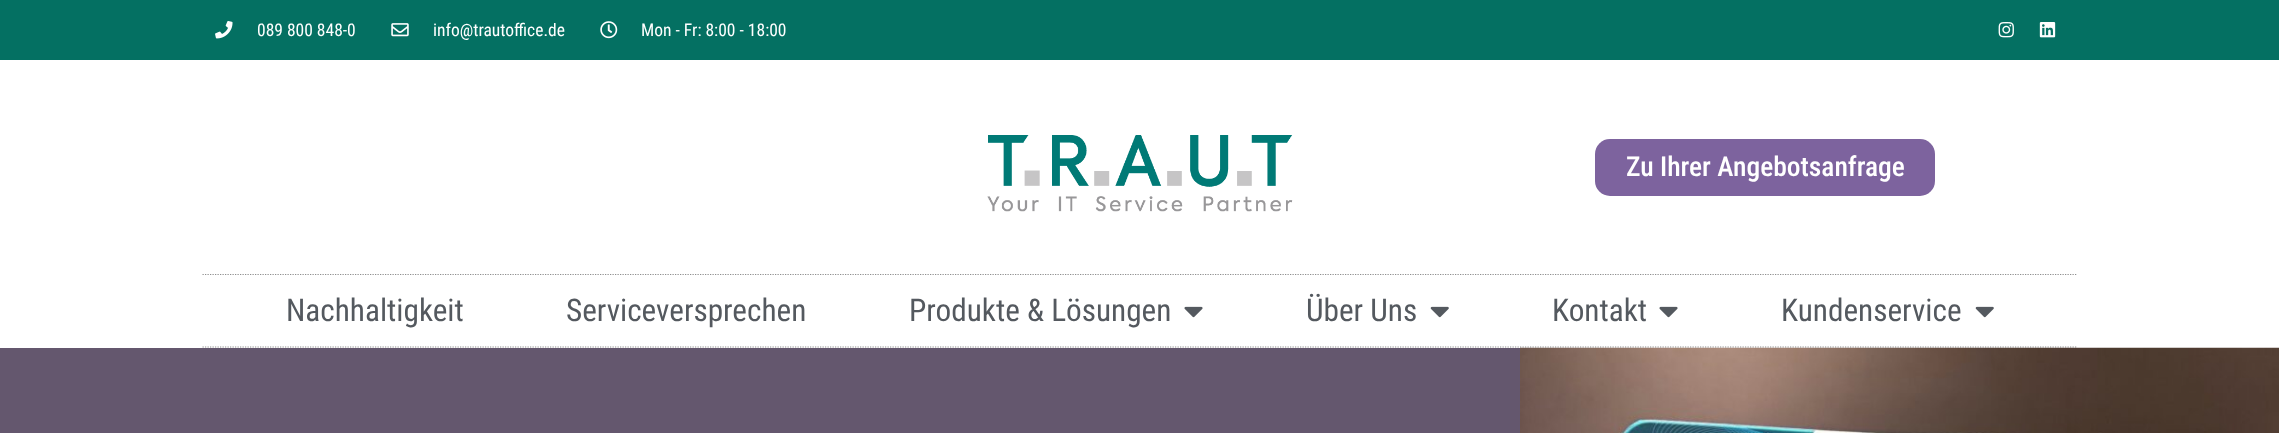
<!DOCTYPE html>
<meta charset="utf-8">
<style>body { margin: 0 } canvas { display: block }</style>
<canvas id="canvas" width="2279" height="433"></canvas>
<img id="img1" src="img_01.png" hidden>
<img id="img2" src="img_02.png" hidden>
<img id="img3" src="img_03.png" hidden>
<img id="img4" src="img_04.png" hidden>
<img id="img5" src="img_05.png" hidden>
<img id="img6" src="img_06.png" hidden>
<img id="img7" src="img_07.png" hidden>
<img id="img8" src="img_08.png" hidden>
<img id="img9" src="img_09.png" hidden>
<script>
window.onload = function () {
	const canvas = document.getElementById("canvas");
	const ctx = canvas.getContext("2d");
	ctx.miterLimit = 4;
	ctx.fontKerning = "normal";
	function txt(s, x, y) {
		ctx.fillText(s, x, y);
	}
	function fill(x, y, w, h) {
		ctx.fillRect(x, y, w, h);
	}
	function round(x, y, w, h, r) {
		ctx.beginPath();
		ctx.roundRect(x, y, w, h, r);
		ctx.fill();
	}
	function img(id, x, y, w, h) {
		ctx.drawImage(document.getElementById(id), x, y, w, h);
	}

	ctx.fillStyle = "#047062";
	fill(0, 0, 2279, 433);
	img("img1", 215, 21, 18, 18);
	img("img2", 391, 23, 18, 14);
	img("img3", 600, 21, 18, 18);
	img("img4", 1998, 22, 16, 16);
	img("img5", 2039, 22, 17, 16);
	ctx.fillStyle = "#FFFFFF";
	fill(0, 60, 2279, 288);
	img("img6", 987, 135, 306, 77);
	ctx.fillStyle = "#7D639E";
	round(1595, 139, 340, 57, 15);
	ctx.beginPath();
	ctx.moveTo(202.5, 274.5);
	ctx.lineTo(2077.5, 274.5);
	ctx.strokeStyle = "#8E8E8E";
	ctx.lineWidth = 1.2;
	ctx.setLineDash([1.25, 1.25]);
	ctx.stroke();
	ctx.beginPath();
	ctx.moveTo(202.5, 347);
	ctx.lineTo(2077.5, 347);
	ctx.stroke();
	img("img7", 1184, 306, 19, 12);
	img("img8", 1430, 306, 19, 12);
	img("img7", 1659, 306, 19, 12);
	img("img8", 1975, 306, 19, 12);
	ctx.fillStyle = "#64576E";
	fill(0, 348, 1520, 85);
	img("img9", 1520, 347, 759, 86);
	ctx.font = "17.5px Roboto Condensed";
	ctx.fillStyle = "#FFFFFF";
	txt("089 800 848-0", 257, 36);
	txt("info@trautoffice.de", 433, 36);
	txt("Mon - Fr: 8:00 - 18:00", 641, 36);
	ctx.font = "500 27.5px Roboto Condensed";
	txt("Zu Ihrer Angebotsanfrage", 1626, 176);
	ctx.font = "31.25px Roboto Condensed";
	ctx.fillStyle = "#54595F";
	txt("Nachhaltigkeit", 286, 321);
	txt("Serviceversprechen", 566, 321);
	txt("Produkte & Lösungen", 909, 321);
	txt("Über Uns", 1306, 321);
	txt("Kontakt", 1552, 321);
	txt("Kundenservice", 1781, 321);
};
</script>
